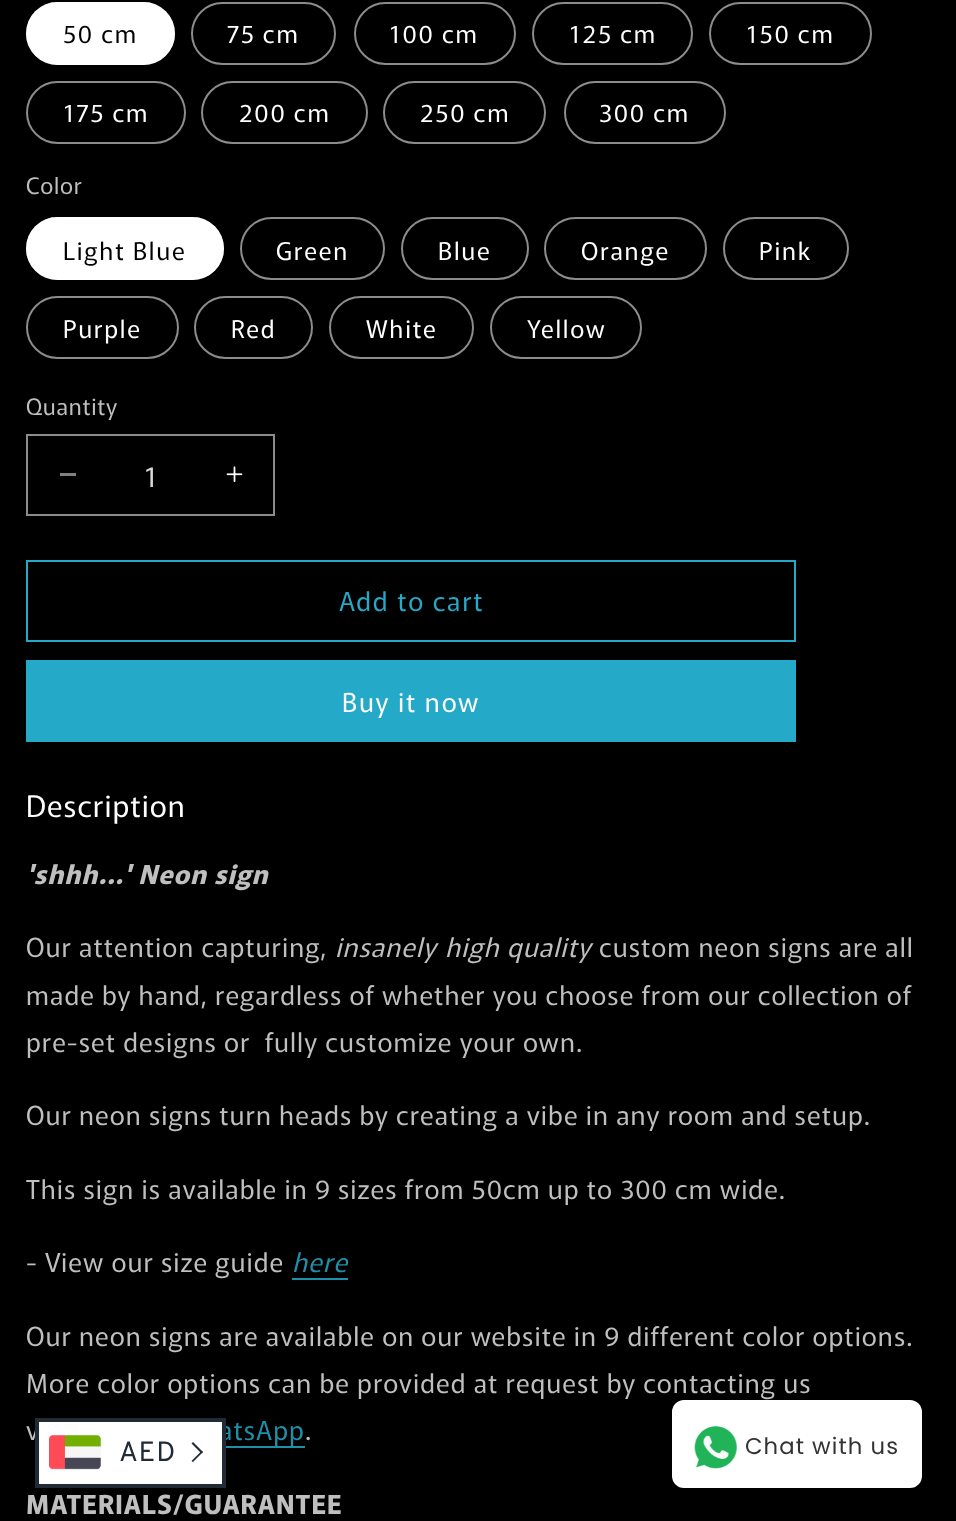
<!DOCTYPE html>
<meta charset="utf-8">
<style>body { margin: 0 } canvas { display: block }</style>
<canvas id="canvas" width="956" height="1521"></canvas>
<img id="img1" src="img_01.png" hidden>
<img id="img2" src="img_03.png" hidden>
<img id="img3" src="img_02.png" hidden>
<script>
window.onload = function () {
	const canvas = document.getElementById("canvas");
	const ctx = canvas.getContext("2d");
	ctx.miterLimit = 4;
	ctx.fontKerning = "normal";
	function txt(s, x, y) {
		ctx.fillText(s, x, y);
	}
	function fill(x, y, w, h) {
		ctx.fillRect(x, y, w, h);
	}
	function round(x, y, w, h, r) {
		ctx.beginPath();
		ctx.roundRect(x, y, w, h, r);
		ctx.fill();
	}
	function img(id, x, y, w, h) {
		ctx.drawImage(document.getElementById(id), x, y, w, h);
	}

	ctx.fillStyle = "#000000";
	fill(0, 0, 956, 1521);
	ctx.fillStyle = "#FFFFFF";
	round(26, 2, 149, 63, 31.5);
	ctx.beginPath();
	ctx.roundRect(27, 3, 147, 61, 30.5);
	ctx.strokeStyle = "rgba(255, 255, 255, 0.55)";
	ctx.lineWidth = 2;
	ctx.stroke();
	ctx.beginPath();
	ctx.roundRect(192, 3, 143, 61, 30.5);
	ctx.strokeStyle = "#8C8C8C";
	ctx.stroke();
	ctx.beginPath();
	ctx.roundRect(355, 3, 160, 61, 30.5);
	ctx.stroke();
	ctx.beginPath();
	ctx.roundRect(533, 3, 159, 61, 30.5);
	ctx.stroke();
	ctx.beginPath();
	ctx.roundRect(710, 3, 161, 61, 30.5);
	ctx.stroke();
	ctx.beginPath();
	ctx.roundRect(27, 82, 158, 61, 30.5);
	ctx.stroke();
	ctx.beginPath();
	ctx.roundRect(202, 82, 165, 61, 30.5);
	ctx.stroke();
	ctx.beginPath();
	ctx.roundRect(384, 82, 161, 61, 30.5);
	ctx.stroke();
	ctx.beginPath();
	ctx.roundRect(565, 82, 160, 61, 30.5);
	ctx.stroke();
	round(26, 217, 198, 63, 31.5);
	ctx.beginPath();
	ctx.roundRect(27, 218, 196, 61, 30.5);
	ctx.strokeStyle = "rgba(255, 255, 255, 0.55)";
	ctx.stroke();
	ctx.beginPath();
	ctx.roundRect(241, 218, 143, 61, 30.5);
	ctx.strokeStyle = "#8C8C8C";
	ctx.stroke();
	ctx.beginPath();
	ctx.roundRect(402, 218, 126, 61, 30.5);
	ctx.stroke();
	ctx.beginPath();
	ctx.roundRect(545, 218, 161, 61, 30.5);
	ctx.stroke();
	ctx.beginPath();
	ctx.roundRect(724, 218, 124, 61, 30.5);
	ctx.stroke();
	ctx.beginPath();
	ctx.roundRect(27, 297, 151, 61, 30.5);
	ctx.stroke();
	ctx.beginPath();
	ctx.roundRect(195, 297, 117, 61, 30.5);
	ctx.stroke();
	ctx.beginPath();
	ctx.roundRect(330, 297, 143, 61, 30.5);
	ctx.stroke();
	ctx.beginPath();
	ctx.roundRect(491, 297, 150, 61, 30.5);
	ctx.stroke();
	ctx.fillStyle = "#808080";
	fill(60, 473, 16, 3);
	img("img1", 226, 466, 17, 17);
	ctx.strokeRect(27, 435, 247, 80);
	ctx.strokeStyle = "#25A9C8";
	ctx.strokeRect(27, 561, 768, 80);
	ctx.fillStyle = "#25A9C8";
	fill(26, 660, 770, 82);
	ctx.fillStyle = "#1F90AA";
	fill(292, 1278, 56, 2);
	fill(226, 1446, 79, 2);
	ctx.fillStyle = "#FFFFFF";
	ctx.beginPath();
	ctx.roundRect(673, 1401, 248, 86, 11);
	ctx.fill();
	ctx.strokeStyle = "#FFFFFF";
	ctx.stroke();
	img("img2", 694, 1426, 43, 43);
	ctx.letterSpacing = "1.75px";
	ctx.font = "24.5px Murecho";
	ctx.fillStyle = "#000000";
	txt("50 cm", 63, 43);
	ctx.fillStyle = "#FFFFFF";
	txt("75 cm", 227, 43);
	txt("100 cm", 389, 43);
	txt("125 cm", 569, 43);
	txt("150 cm", 746, 43);
	txt("175 cm", 63, 122);
	txt("200 cm", 239, 122);
	txt("250 cm", 420, 122);
	txt("300 cm", 599, 122);
	ctx.letterSpacing = "0.75px";
	ctx.font = "22.75px Murecho";
	ctx.fillStyle = "#BFBFBF";
	txt("Color", 26, 194);
	ctx.letterSpacing = "1.75px";
	ctx.font = "24.5px Murecho";
	ctx.fillStyle = "#000000";
	txt("Light Blue", 63, 260);
	ctx.fillStyle = "#FFFFFF";
	txt("Green", 276, 260);
	txt("Blue", 438, 260);
	txt("Orange", 581, 260);
	txt("Pink", 759, 260);
	txt("Purple", 63, 338);
	txt("Red", 231, 338);
	txt("White", 366, 338);
	txt("Yellow", 527, 338);
	ctx.letterSpacing = "0.75px";
	ctx.font = "22.75px Murecho";
	ctx.fillStyle = "#BFBFBF";
	txt("Quantity", 26, 415);
	ctx.letterSpacing = "0px";
	ctx.font = "28px Murecho";
	ctx.fillStyle = "#D9D9D9";
	txt("1", 144, 487);
	ctx.letterSpacing = "1.75px";
	ctx.font = "26.25px Murecho";
	ctx.fillStyle = "#25A9C8";
	txt("Add to cart", 339, 611);
	ctx.fillStyle = "#FFFFFF";
	txt("Buy it now", 342, 712);
	ctx.letterSpacing = "1.05px";
	ctx.font = "29.75px Murecho";
	txt("Description", 26, 817);
	ctx.font = "italic bold 26.25px Murecho";
	ctx.fillStyle = "#BFBFBF";
	txt("'shhh...' Neon sign", 26, 884);
	ctx.font = "26.25px Murecho";
	txt("Our attention capturing,", 26, 957);
	ctx.font = "italic 26.25px Murecho";
	txt("insanely", 335, 957);
	txt("high quality", 445, 957);
	ctx.font = "26.25px Murecho";
	txt("custom neon signs are all", 599, 957);
	txt("made by hand, regardless of whether you choose from our collection of", 26, 1005);
	txt("pre-set designs or  fully customize your own.", 26, 1052);
	txt("Our neon signs turn heads by creating a vibe in any room and setup.", 26, 1125);
	txt("This sign is available in 9 sizes from 50cm up to 300 cm wide.", 26, 1199);
	txt("- View our size guide", 26, 1272);
	ctx.font = "italic 26.25px Murecho";
	ctx.fillStyle = "#1F90AA";
	txt("here", 292, 1272);
	ctx.font = "26.25px Murecho";
	ctx.fillStyle = "#BFBFBF";
	txt("Our neon signs are available on our website in 9 different color options.", 26, 1346);
	txt("More color options can be provided at request by contacting us", 26, 1393);
	txt("v", 26, 1440);
	ctx.fillStyle = "#1F90AA";
	txt("atsApp", 219, 1440);
	ctx.fillStyle = "#BFBFBF";
	txt(".", 305, 1440);
	ctx.font = "bold 26.25px Murecho";
	txt("MATERIALS/GUARANTEE", 26, 1514);
	ctx.fillStyle = "#FFFFFF";
	ctx.beginPath();
	ctx.rect(37, 1420, 187, 66);
	ctx.fill();
	ctx.strokeStyle = "#212B36";
	ctx.lineWidth = 4;
	ctx.stroke();
	img("img3", 49, 1435, 52, 35);
	ctx.font = "28px Overpass";
	ctx.fillStyle = "#212B36";
	txt("AED", 119, 1461);
	ctx.beginPath();
	ctx.moveTo(191.5, 1443.5);
	ctx.lineTo(193, 1442);
	ctx.lineTo(203, 1452);
	ctx.lineTo(201.5, 1453.5);
	ctx.closePath();
	ctx.fill();
	ctx.beginPath();
	ctx.moveTo(191.5, 1461);
	ctx.lineTo(201.5, 1451);
	ctx.lineTo(203, 1452);
	ctx.lineTo(193, 1462);
	ctx.closePath();
	ctx.fill();
	ctx.font = "22.75px Poppins";
	ctx.fillStyle = "#333333";
	txt("Chat with us", 745, 1454);
};
</script>
